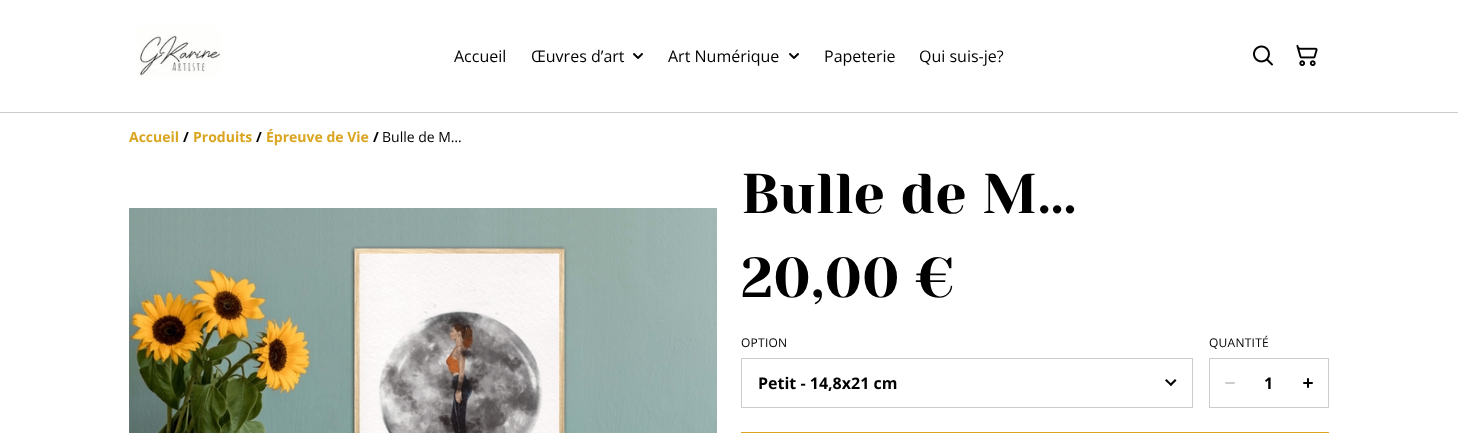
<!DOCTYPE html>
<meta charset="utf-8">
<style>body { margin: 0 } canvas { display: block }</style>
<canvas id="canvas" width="1458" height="433"></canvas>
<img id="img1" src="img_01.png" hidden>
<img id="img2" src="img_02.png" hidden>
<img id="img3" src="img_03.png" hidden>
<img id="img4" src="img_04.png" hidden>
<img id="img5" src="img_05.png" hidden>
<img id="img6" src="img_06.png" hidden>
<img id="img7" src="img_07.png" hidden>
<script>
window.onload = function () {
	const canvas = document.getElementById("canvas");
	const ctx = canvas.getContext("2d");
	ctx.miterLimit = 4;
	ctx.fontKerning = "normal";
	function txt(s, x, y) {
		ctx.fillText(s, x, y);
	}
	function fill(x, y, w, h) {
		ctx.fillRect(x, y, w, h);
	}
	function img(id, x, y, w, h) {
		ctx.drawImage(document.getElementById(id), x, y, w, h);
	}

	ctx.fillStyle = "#FFFFFF";
	fill(0, 0, 1458, 433);
	ctx.fillStyle = "#CCCCCC";
	fill(0, 112, 1458, 1);
	img("img1", 135, 26, 86, 51);
	img("img2", 633, 53, 10, 6);
	img("img2", 789, 53, 10, 6);
	img("img3", 1253, 45, 20, 21);
	img("img4", 1296, 44, 22, 22);
	img("img5", 129, 208, 588, 225);
	ctx.strokeStyle = "#CCCCCC";
	ctx.strokeRect(741.5, 358.5, 451, 49);
	ctx.fillStyle = "#000000";
	ctx.beginPath();
	ctx.moveTo(1175, 379);
	ctx.lineTo(1176.5, 380.5);
	ctx.lineTo(1171, 386);
	ctx.lineTo(1169.5, 384.5);
	ctx.closePath();
	ctx.fill();
	ctx.beginPath();
	ctx.moveTo(1166.5, 379);
	ctx.lineTo(1172, 384.5);
	ctx.lineTo(1171, 386);
	ctx.lineTo(1165, 380.5);
	ctx.closePath();
	ctx.fill();
	ctx.fillStyle = "#CCCCCC";
	ctx.beginPath();
	ctx.moveTo(1209, 358);
	ctx.lineTo(1250, 358);
	ctx.lineTo(1250, 359);
	ctx.lineTo(1210, 359);
	ctx.closePath();
	ctx.moveTo(1250, 408);
	ctx.lineTo(1209, 408);
	ctx.lineTo(1210, 407);
	ctx.lineTo(1250, 407);
	ctx.closePath();
	ctx.fill();
	ctx.fillStyle = "rgba(0, 0, 0, 0.2)";
	ctx.beginPath();
	ctx.moveTo(1209, 408);
	ctx.lineTo(1209, 358);
	ctx.lineTo(1210, 359);
	ctx.lineTo(1210, 407);
	ctx.closePath();
	ctx.fill();
	img("img6", 1225, 382, 10, 2);
	ctx.fillStyle = "#CCCCCC";
	fill(1250, 358, 38, 1);
	fill(1250, 407, 38, 1);
	ctx.beginPath();
	ctx.moveTo(1288, 358);
	ctx.lineTo(1329, 358);
	ctx.lineTo(1328, 359);
	ctx.lineTo(1288, 359);
	ctx.closePath();
	ctx.fill();
	ctx.fillStyle = "rgba(0, 0, 0, 0.2)";
	ctx.beginPath();
	ctx.moveTo(1329, 358);
	ctx.lineTo(1329, 408);
	ctx.lineTo(1328, 407);
	ctx.lineTo(1328, 359);
	ctx.closePath();
	ctx.fill();
	ctx.beginPath();
	ctx.moveTo(1329, 408);
	ctx.lineTo(1288, 408);
	ctx.lineTo(1288, 407);
	ctx.lineTo(1328, 407);
	ctx.closePath();
	ctx.fill();
	img("img7", 1303, 378, 10, 10);
	ctx.fillStyle = "#DAA520";
	fill(741, 432, 588, 1);
	ctx.font = "16px Open Sans";
	ctx.fillStyle = "#000000";
	txt("Accueil", 454, 62);
	txt("Œuvres d’art", 531, 62);
	txt("Art Numérique", 668, 62);
	txt("Papeterie", 824, 62);
	txt("Qui suis-je?", 919, 62);
	ctx.font = "bold 14px Open Sans";
	ctx.fillStyle = "#DAA520";
	txt("Accueil", 129, 142);
	ctx.fillStyle = "#000000";
	txt("/", 183, 142);
	ctx.fillStyle = "#DAA520";
	txt("Produits", 193, 142);
	ctx.fillStyle = "#000000";
	txt("/", 256, 142);
	ctx.fillStyle = "#DAA520";
	txt("Épreuve de Vie", 266, 142);
	ctx.fillStyle = "#000000";
	txt("/", 373, 142);
	ctx.font = "14px Open Sans";
	txt("Bulle de M…", 382, 142);
	ctx.font = "56px Yeseva One";
	txt("Bulle de M…", 741, 213);
	txt("20,00 €", 741, 297);
	ctx.letterSpacing = "0.25px";
	ctx.font = "12px Open Sans";
	txt("OPTION", 741, 347);
	ctx.letterSpacing = "0px";
	ctx.font = "bold 16px Open Sans";
	txt("Petit - 14,8x21 cm", 758, 389);
	ctx.letterSpacing = "0.25px";
	ctx.font = "12px Open Sans";
	txt("QUANTITÉ", 1209, 347);
	ctx.letterSpacing = "0px";
	ctx.font = "bold 16px Open Sans";
	txt("1", 1264, 389);
};
</script>
